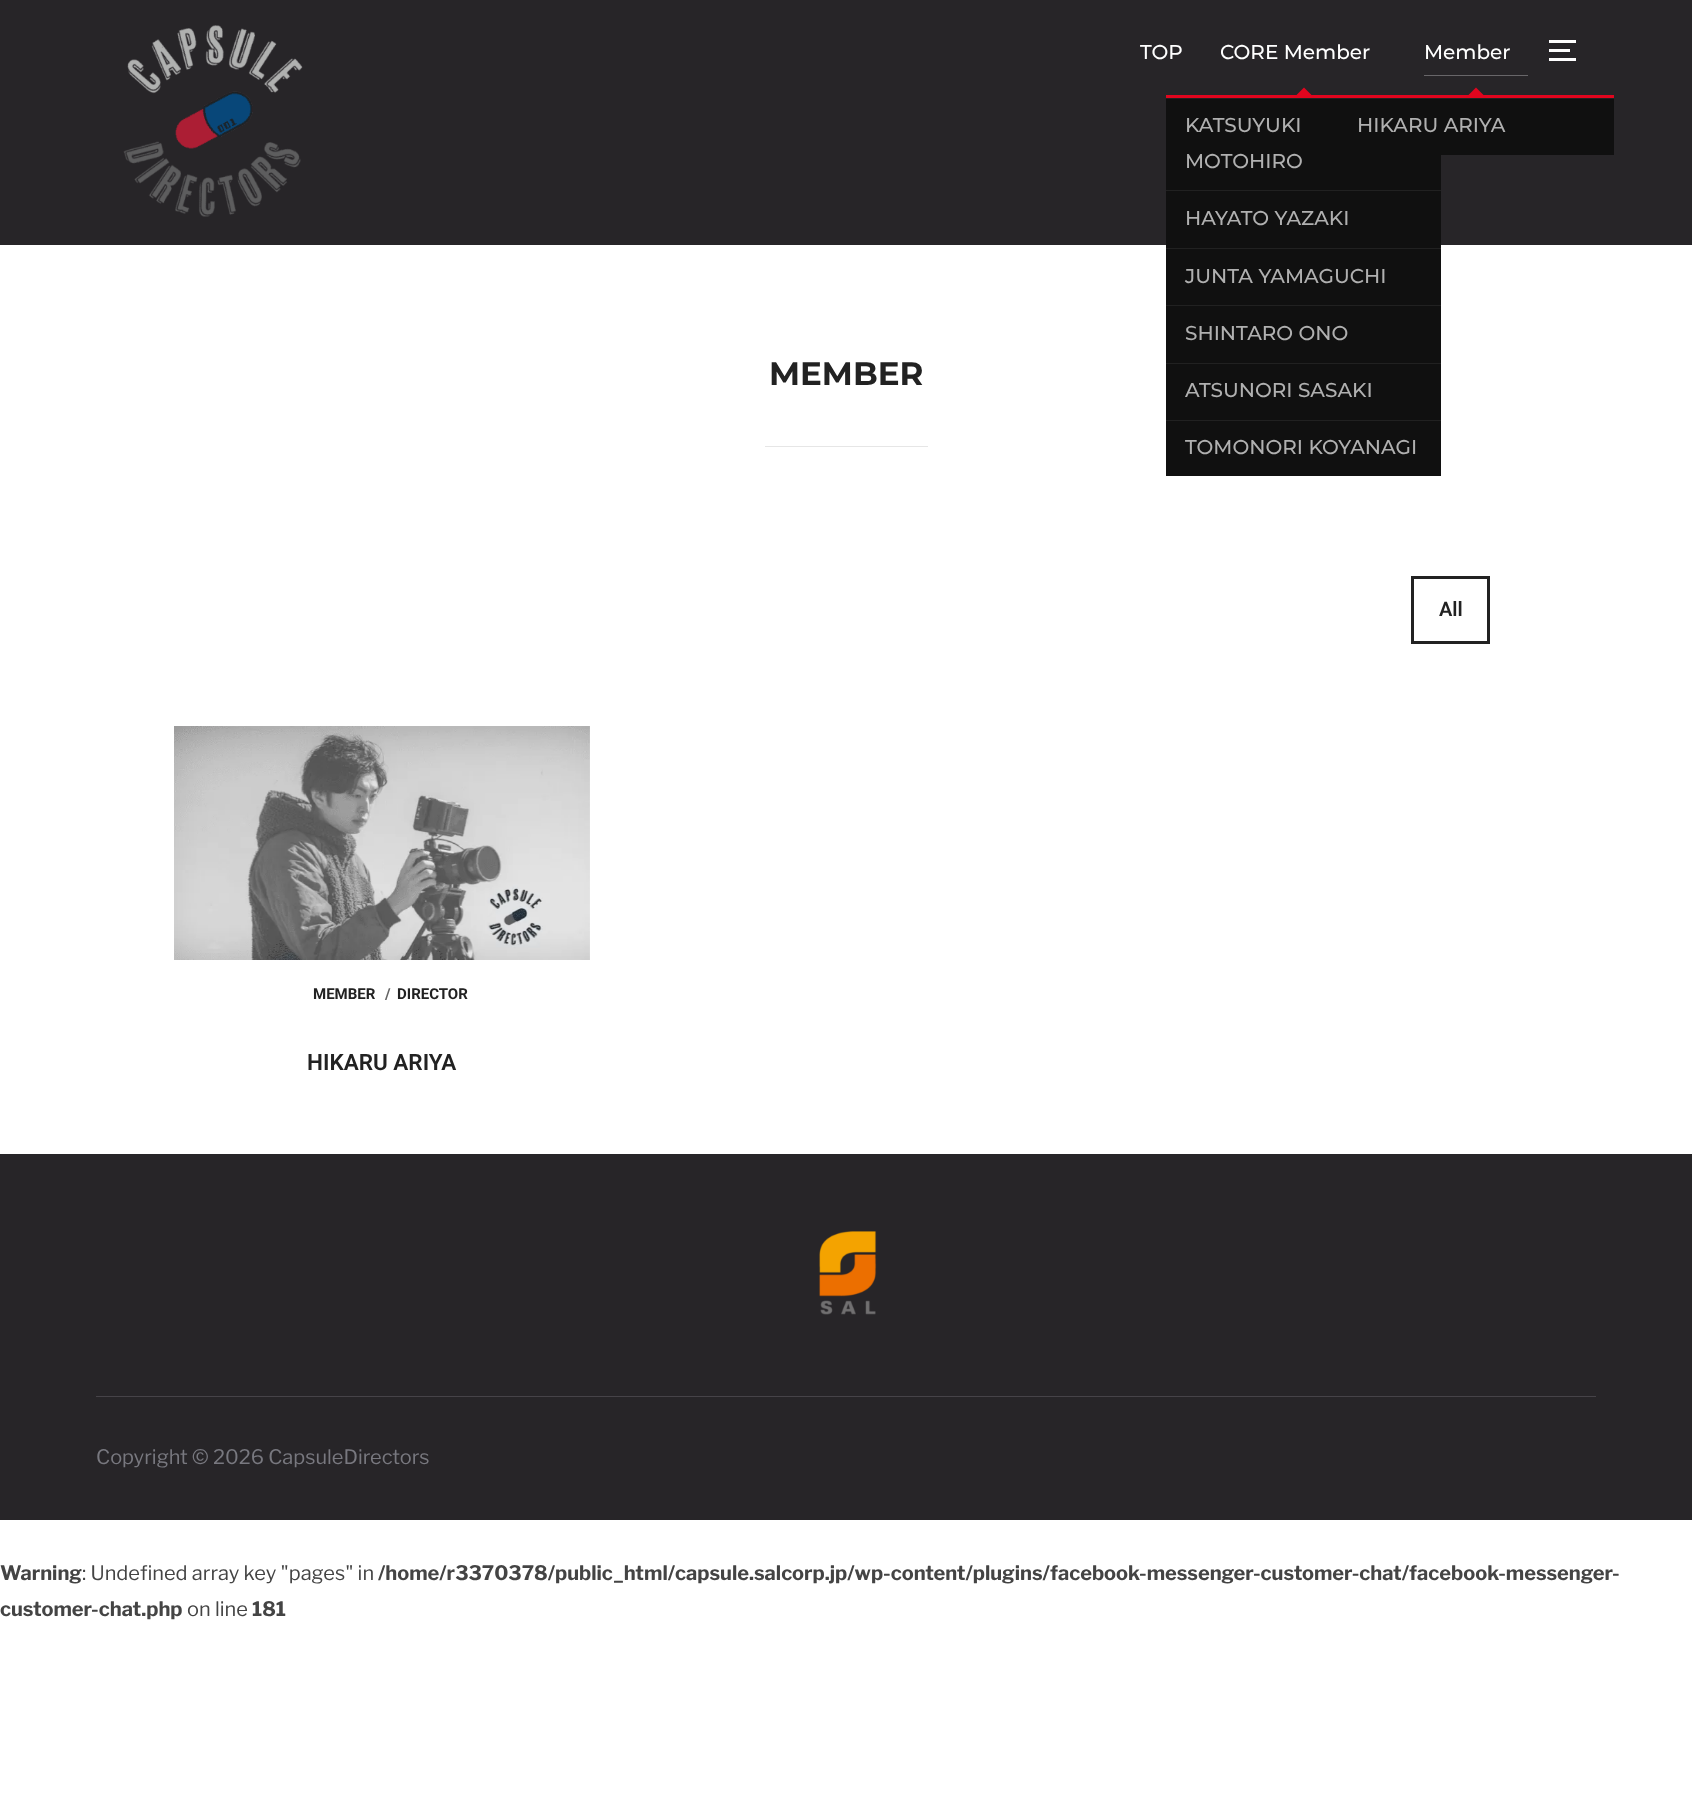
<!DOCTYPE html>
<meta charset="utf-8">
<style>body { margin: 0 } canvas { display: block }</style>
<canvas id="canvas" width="1692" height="1808"></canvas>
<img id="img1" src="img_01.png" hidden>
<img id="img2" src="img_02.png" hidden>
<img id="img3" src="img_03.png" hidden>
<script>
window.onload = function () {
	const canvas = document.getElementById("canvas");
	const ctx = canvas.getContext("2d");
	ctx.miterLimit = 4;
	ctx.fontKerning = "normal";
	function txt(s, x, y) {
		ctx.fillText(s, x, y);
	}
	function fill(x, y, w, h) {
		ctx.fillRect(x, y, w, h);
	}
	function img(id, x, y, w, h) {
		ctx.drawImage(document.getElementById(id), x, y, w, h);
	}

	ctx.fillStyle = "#FFFFFF";
	fill(0, 0, 1692, 1808);
	ctx.fillStyle = "#272528";
	fill(0, 0, 1692, 245);
	img("img1", 123, 25, 180, 192);
	ctx.fillStyle = "#101010";
	fill(1166, 99, 275, 377);
	ctx.fillStyle = "#E1051E";
	fill(1166, 95, 448, 3);
	ctx.beginPath();
	ctx.moveTo(1314, 97.5);
	ctx.lineTo(1294, 97.5);
	ctx.lineTo(1304, 87.5);
	ctx.closePath();
	ctx.fill();
	ctx.fillStyle = "#212121";
	fill(1166, 98, 448, 1);
	fill(1166, 190, 275, 1);
	fill(1166, 248, 275, 1);
	fill(1166, 305, 275, 1);
	fill(1166, 363, 275, 1);
	fill(1166, 420, 275, 1);
	ctx.fillStyle = "#686669";
	fill(1424, 75, 104, 1);
	ctx.fillStyle = "#101010";
	fill(1441, 99, 173, 56);
	ctx.fillStyle = "#E1051E";
	ctx.beginPath();
	ctx.moveTo(1486, 97.5);
	ctx.lineTo(1466, 97.5);
	ctx.lineTo(1476, 87.5);
	ctx.closePath();
	ctx.fill();
	ctx.fillStyle = "#FFFFFF";
	fill(1549, 40, 27, 3);
	fill(1549, 49, 21, 3);
	fill(1549, 58, 27, 3);
	ctx.fillStyle = "#E6E6E6";
	fill(765, 446, 163, 1);
	ctx.strokeStyle = "#222222";
	ctx.lineWidth = 3;
	ctx.strokeRect(1412.5, 577.5, 76, 65);
	img("img2", 174, 726, 416, 234);
	ctx.fillStyle = "#272528";
	fill(0, 1154, 1692, 366);
	img("img3", 819, 1231, 58, 84);
	ctx.fillStyle = "#464348";
	fill(96, 1396, 1500, 1);
	ctx.font = "500 20px Montserrat";
	ctx.fillStyle = "#FFFFFF";
	txt("TOP", 1140, 59);
	txt("CORE Member", 1220, 59);
	ctx.fillStyle = "#B0B0B0";
	txt("KATSUYUKI", 1185, 132);
	txt("MOTOHIRO", 1185, 168);
	txt("HAYATO YAZAKI", 1185, 225);
	txt("JUNTA YAMAGUCHI", 1185, 283);
	txt("SHINTARO ONO", 1185, 340);
	txt("ATSUNORI SASAKI", 1185, 397);
	txt("TOMONORI KOYANAGI", 1185, 454);
	ctx.fillStyle = "#FFFFFF";
	txt("Member", 1424, 59);
	ctx.fillStyle = "#B0B0B0";
	txt("HIKARU ARIYA", 1357, 132);
	ctx.font = "bold 32.5px Montserrat";
	ctx.fillStyle = "#222222";
	txt("MEMBER", 769, 385);
	ctx.font = "600 20px Roboto";
	txt("All", 1439, 616);
	ctx.font = "bold 15px Roboto";
	txt("MEMBER", 313, 999);
	ctx.fillStyle = "#646464";
	txt("/", 385, 999);
	ctx.fillStyle = "#222222";
	txt("DIRECTOR", 397, 999);
	ctx.font = "600 22.5px Roboto";
	txt("HIKARU ARIYA", 307, 1070);
	ctx.font = "20px Libre Franklin";
	ctx.fillStyle = "#78787F";
	txt("Copyright © 2026 CapsuleDirectors", 96, 1464);
	ctx.font = "bold 20px Libre Franklin";
	ctx.fillStyle = "#444444";
	txt("Warning", 0, 1580);
	ctx.font = "20px Libre Franklin";
	txt(": Undefined array key \"pages\" in", 82, 1580);
	ctx.font = "bold 20px Libre Franklin";
	txt("/home/r3370378/public_html/capsule.salcorp.jp/wp-content/plugins/facebook-messenger-customer-chat/facebook-messenger-", 378, 1580);
	txt("customer-chat.php", 0, 1616);
	ctx.font = "20px Libre Franklin";
	txt("on line", 187, 1616);
	ctx.font = "bold 20px Libre Franklin";
	txt("181", 252, 1616);
};
</script>
